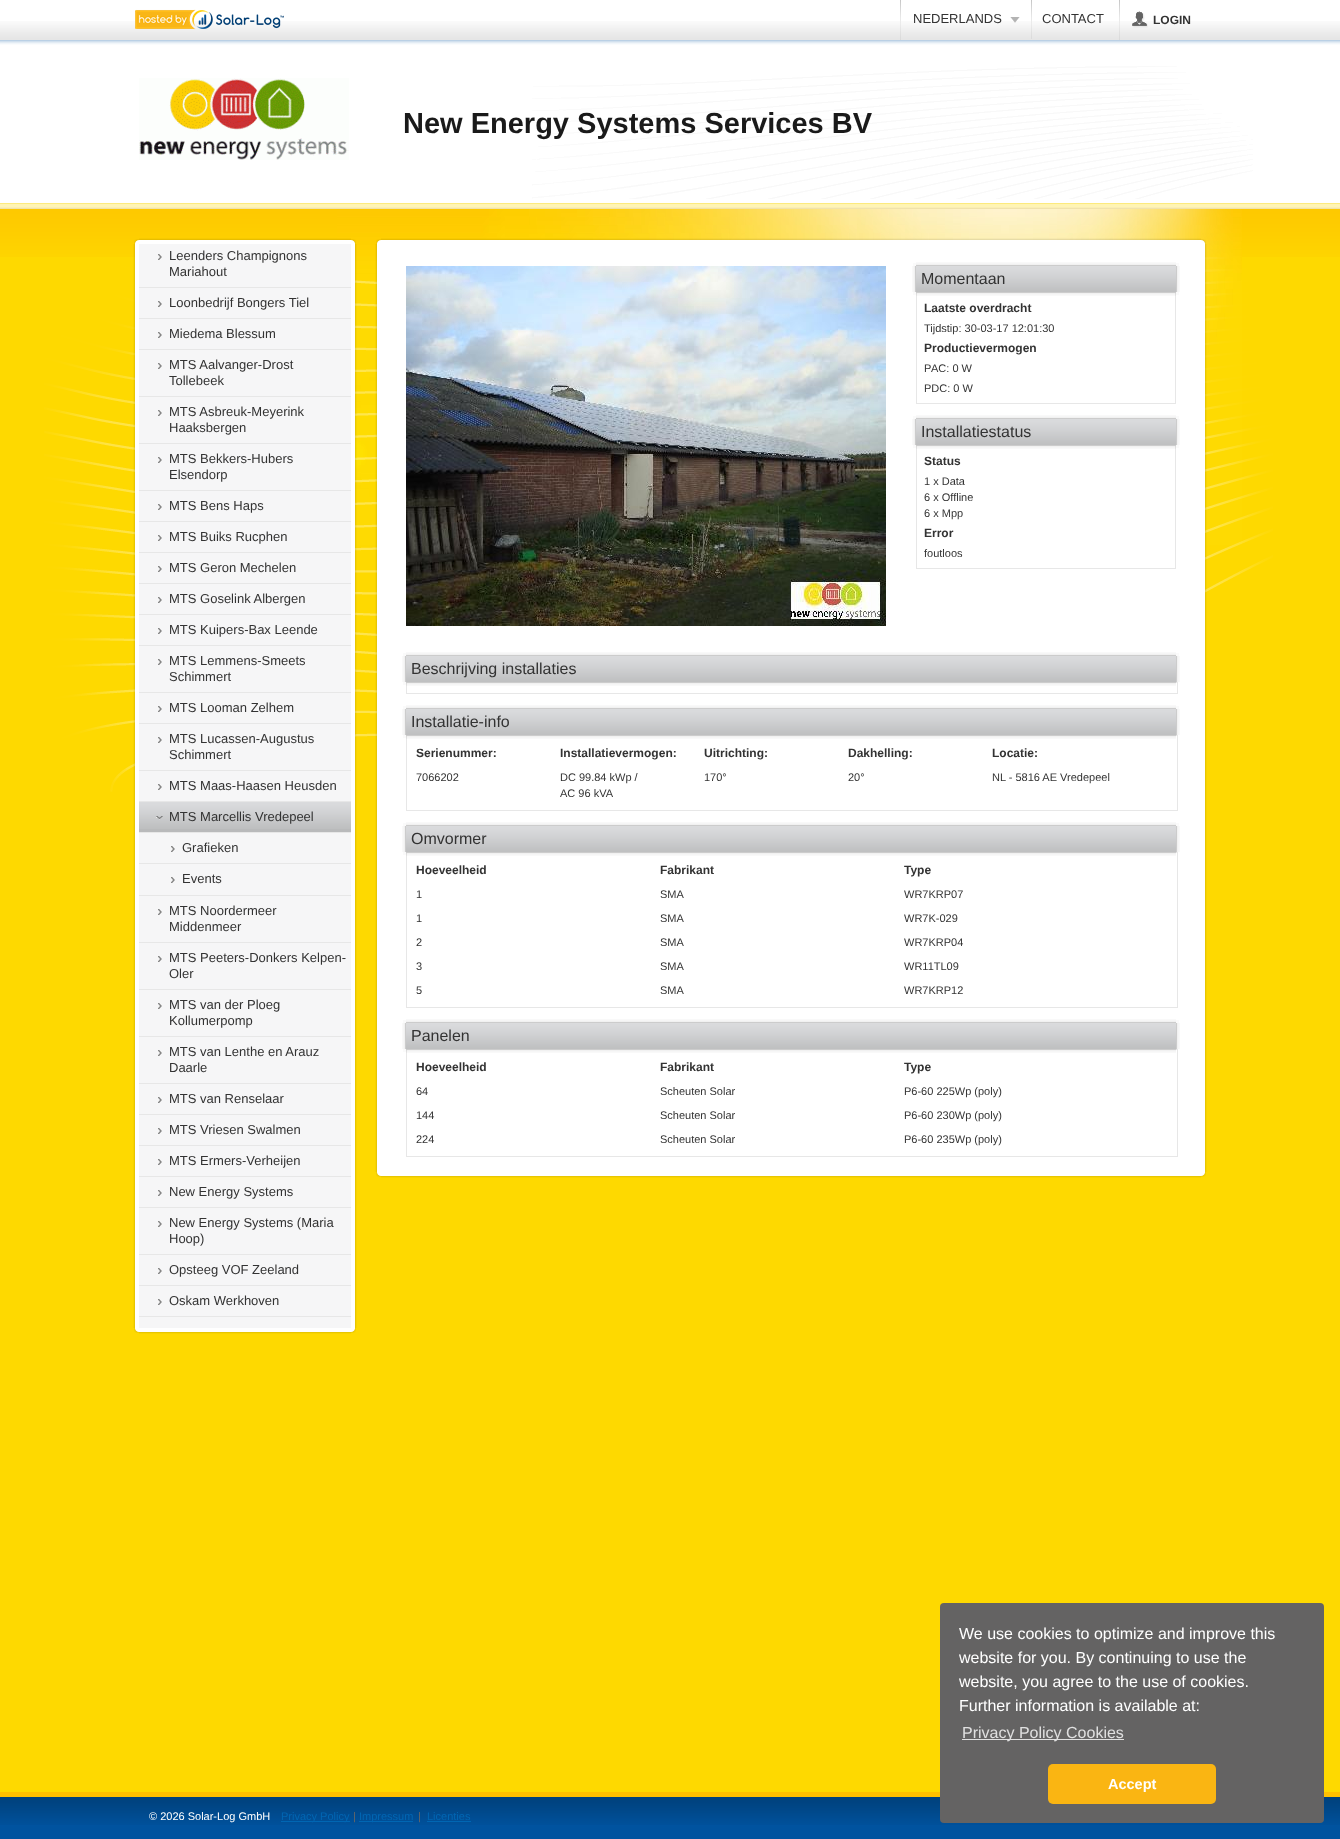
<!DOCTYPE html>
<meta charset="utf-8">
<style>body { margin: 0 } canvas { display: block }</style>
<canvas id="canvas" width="1340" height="1839"></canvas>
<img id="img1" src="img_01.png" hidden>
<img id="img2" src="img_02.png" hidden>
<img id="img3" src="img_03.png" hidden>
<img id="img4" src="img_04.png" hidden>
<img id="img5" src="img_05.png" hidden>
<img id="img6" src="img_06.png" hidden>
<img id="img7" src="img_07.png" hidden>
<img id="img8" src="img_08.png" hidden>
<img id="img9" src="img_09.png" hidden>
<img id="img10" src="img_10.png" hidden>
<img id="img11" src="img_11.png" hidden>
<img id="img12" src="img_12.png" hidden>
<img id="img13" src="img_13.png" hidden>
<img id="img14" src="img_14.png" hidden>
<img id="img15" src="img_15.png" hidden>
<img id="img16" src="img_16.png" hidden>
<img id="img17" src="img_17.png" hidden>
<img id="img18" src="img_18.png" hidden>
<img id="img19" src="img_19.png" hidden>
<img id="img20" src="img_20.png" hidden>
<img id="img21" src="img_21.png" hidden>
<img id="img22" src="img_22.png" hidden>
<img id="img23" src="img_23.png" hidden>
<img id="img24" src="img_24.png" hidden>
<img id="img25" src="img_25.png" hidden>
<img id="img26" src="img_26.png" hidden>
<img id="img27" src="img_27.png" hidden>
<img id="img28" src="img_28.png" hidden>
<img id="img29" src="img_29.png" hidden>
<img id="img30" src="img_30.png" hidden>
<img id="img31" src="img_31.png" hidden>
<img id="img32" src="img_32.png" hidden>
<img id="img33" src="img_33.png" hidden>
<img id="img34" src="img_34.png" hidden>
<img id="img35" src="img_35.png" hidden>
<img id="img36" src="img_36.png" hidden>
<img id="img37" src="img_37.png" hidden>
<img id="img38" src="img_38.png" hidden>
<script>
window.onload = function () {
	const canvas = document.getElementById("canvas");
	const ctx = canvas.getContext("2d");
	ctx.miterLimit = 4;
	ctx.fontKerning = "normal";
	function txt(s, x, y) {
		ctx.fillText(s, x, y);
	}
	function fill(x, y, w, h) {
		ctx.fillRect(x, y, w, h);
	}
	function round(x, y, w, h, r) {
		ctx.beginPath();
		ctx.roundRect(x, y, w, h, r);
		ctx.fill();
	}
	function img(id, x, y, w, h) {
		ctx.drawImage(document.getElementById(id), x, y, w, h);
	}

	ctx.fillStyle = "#FED900";
	fill(0, 0, 1340, 1839);
	ctx.fillStyle = "#FFFFFF";
	fill(0, 0, 1340, 203);
	img("img1", 0, 21, 1340, 24);
	img("img2", 532, 66, 721, 133);
	img("img3", 135, 9, 149, 21);
	img("img4", 900, 0, 1, 40);
	img("img5", 1010, 17, 10, 6);
	img("img6", 1031, 0, 1, 39);
	img("img4", 1119, 0, 1, 40);
	img("img7", 1132, 11, 16, 17);
	img("img8", 139, 78, 210, 82);
	img("img9", 0, 203, 1340, 54);
	img("img10", 337, 209, 905, 336);
	img("img11", 44, 257, 1229, 535);
	img("img12", 134, 239, 5, 5);
	img("img13", 133, 244, 6, 1084);
	img("img14", 139, 238, 212, 6);
	img("img15", 351, 239, 5, 5);
	img("img16", 351, 244, 6, 1084);
	img("img17", 134, 1328, 5, 5);
	img("img18", 139, 1328, 212, 6);
	img("img19", 351, 1328, 5, 5);
	ctx.fillStyle = "#F6F6F7";
	fill(139, 244, 212, 1084);
	img("img20", 158, 254, 4, 6);
	ctx.fillStyle = "#E7E7E7";
	fill(139, 287, 212, 1);
	img("img20", 158, 301, 4, 6);
	fill(139, 318, 212, 1);
	img("img20", 158, 332, 4, 6);
	fill(139, 349, 212, 1);
	img("img20", 158, 363, 4, 6);
	fill(139, 396, 212, 1);
	img("img20", 158, 410, 4, 6);
	fill(139, 443, 212, 1);
	img("img20", 158, 457, 4, 6);
	fill(139, 490, 212, 1);
	img("img20", 158, 504, 4, 6);
	fill(139, 521, 212, 1);
	img("img20", 158, 535, 4, 6);
	fill(139, 552, 212, 1);
	img("img20", 158, 566, 4, 6);
	fill(139, 583, 212, 1);
	img("img20", 158, 597, 4, 6);
	fill(139, 614, 212, 1);
	img("img20", 158, 628, 4, 6);
	fill(139, 645, 212, 1);
	img("img20", 158, 659, 4, 6);
	fill(139, 692, 212, 1);
	img("img20", 158, 706, 4, 6);
	fill(139, 723, 212, 1);
	img("img20", 158, 737, 4, 6);
	fill(139, 770, 212, 1);
	img("img20", 158, 784, 4, 6);
	ctx.fillStyle = "#B9BABB";
	fill(139, 829, 212, 3);
	img("img21", 139, 802, 212, 27);
	ctx.fillStyle = "#E7E7E7";
	fill(139, 801, 212, 1);
	img("img22", 156, 816, 7, 4);
	fill(139, 832, 212, 1);
	img("img20", 171, 846, 4, 6);
	fill(139, 863, 212, 1);
	img("img20", 171, 877, 4, 6);
	fill(139, 895, 212, 1);
	img("img20", 158, 909, 4, 6);
	fill(139, 942, 212, 1);
	img("img20", 158, 956, 4, 6);
	fill(139, 989, 212, 1);
	img("img20", 158, 1003, 4, 6);
	fill(139, 1036, 212, 1);
	img("img20", 158, 1050, 4, 6);
	fill(139, 1083, 212, 1);
	img("img20", 158, 1097, 4, 6);
	fill(139, 1114, 212, 1);
	img("img20", 158, 1128, 4, 6);
	fill(139, 1145, 212, 1);
	img("img20", 158, 1159, 4, 6);
	fill(139, 1176, 212, 1);
	img("img20", 158, 1190, 4, 6);
	fill(139, 1207, 212, 1);
	img("img20", 158, 1221, 4, 6);
	fill(139, 1254, 212, 1);
	img("img20", 158, 1268, 4, 6);
	fill(139, 1285, 212, 1);
	img("img20", 158, 1299, 4, 6);
	fill(139, 1316, 212, 1);
	ctx.fillStyle = "#FFFFFF";
	fill(381, 244, 820, 928);
	img("img23", 376, 239, 5, 5);
	img("img24", 375, 244, 6, 928);
	img("img25", 381, 238, 820, 6);
	img("img26", 1201, 239, 5, 5);
	img("img27", 1201, 244, 6, 928);
	img("img17", 376, 1172, 5, 5);
	img("img28", 381, 1172, 820, 6);
	img("img19", 1201, 1172, 5, 5);
	img("img29", 406, 266, 480, 360);
	img("img30", 916, 266, 260, 26);
	ctx.fillStyle = "#FAFAFA";
	fill(913, 263, 3, 3);
	img("img31", 912, 266, 4, 26);
	img("img32", 916, 262, 260, 4);
	fill(1176, 263, 3, 3);
	img("img33", 1176, 266, 4, 26);
	fill(913, 292, 3, 3);
	ctx.strokeStyle = "#E7E7E7";
	ctx.strokeRect(916.5, 292.5, 259, 111);
	img("img34", 916, 292, 260, 4);
	fill(1176, 292, 3, 3);
	img("img30", 916, 419, 260, 26);
	fill(913, 416, 3, 3);
	img("img31", 912, 419, 4, 26);
	img("img32", 916, 415, 260, 4);
	fill(1176, 416, 3, 3);
	img("img33", 1176, 419, 4, 26);
	fill(913, 445, 3, 3);
	ctx.strokeRect(916.5, 445.5, 259, 123);
	img("img34", 916, 445, 260, 4);
	fill(1176, 445, 3, 3);
	img("img35", 406, 656, 770, 26);
	fill(403, 653, 3, 3);
	img("img31", 402, 656, 4, 26);
	img("img36", 406, 652, 770, 4);
	fill(1176, 653, 3, 3);
	img("img33", 1176, 656, 4, 26);
	fill(403, 682, 3, 3);
	ctx.strokeRect(406.5, 682.5, 771, 11);
	img("img37", 406, 682, 770, 4);
	img("img35", 406, 709, 770, 26);
	fill(403, 706, 3, 3);
	img("img31", 402, 709, 4, 26);
	img("img36", 406, 705, 770, 4);
	fill(1176, 706, 3, 3);
	img("img33", 1176, 709, 4, 26);
	fill(403, 735, 3, 3);
	ctx.strokeRect(406.5, 735.5, 771, 75);
	img("img37", 406, 735, 770, 4);
	img("img35", 406, 826, 770, 26);
	fill(403, 823, 3, 3);
	img("img31", 402, 826, 4, 26);
	img("img36", 406, 822, 770, 4);
	fill(1176, 823, 3, 3);
	img("img33", 1176, 826, 4, 26);
	fill(403, 852, 3, 3);
	ctx.strokeRect(406.5, 852.5, 771, 155);
	img("img37", 406, 852, 770, 4);
	img("img35", 406, 1023, 770, 26);
	fill(403, 1020, 3, 3);
	img("img31", 402, 1023, 4, 26);
	img("img36", 406, 1019, 770, 4);
	fill(1176, 1020, 3, 3);
	img("img33", 1176, 1023, 4, 26);
	fill(403, 1049, 3, 3);
	ctx.strokeRect(406.5, 1049.5, 771, 107);
	img("img37", 406, 1049, 770, 4);
	ctx.fillStyle = "#00539F";
	fill(0, 1825, 1340, 14);
	img("img38", 0, 1797, 1340, 28);
	ctx.fillStyle = "#FFC000";
	fill(0, 1792, 1340, 5);
	ctx.fillStyle = "#0066B3";
	fill(281, 1821, 69, 1);
	fill(359, 1821, 54, 1);
	fill(427, 1821, 44, 1);
	ctx.fillStyle = "#646363";
	round(940, 1603, 384, 220, 4);
	ctx.fillStyle = "#E0E0E0";
	fill(962, 1739, 162, 1);
	ctx.fillStyle = "#FAB512";
	round(1048, 1764, 168, 40, 5);
	ctx.font = "13px Liberation Sans";
	ctx.fillStyle = "#333333";
	txt("NEDERLANDS", 913, 23);
	txt("CONTACT", 1042, 23);
	ctx.font = "bold 12px Liberation Sans";
	txt("LOGIN", 1153, 24);
	ctx.font = "bold 29px Liberation Sans";
	ctx.fillStyle = "#1A1A1A";
	txt("New Energy Systems Services BV", 403, 133);
	ctx.font = "13px Liberation Sans";
	ctx.fillStyle = "#333333";
	txt("Leenders Champignons", 169, 260);
	txt("Mariahout", 169, 276);
	txt("Loonbedrijf Bongers Tiel", 169, 307);
	txt("Miedema Blessum", 169, 338);
	txt("MTS Aalvanger-Drost", 169, 369);
	txt("Tollebeek", 169, 385);
	txt("MTS Asbreuk-Meyerink", 169, 416);
	txt("Haaksbergen", 169, 432);
	txt("MTS Bekkers-Hubers", 169, 463);
	txt("Elsendorp", 169, 479);
	txt("MTS Bens Haps", 169, 510);
	txt("MTS Buiks Rucphen", 169, 541);
	txt("MTS Geron Mechelen", 169, 572);
	txt("MTS Goselink Albergen", 169, 603);
	txt("MTS Kuipers-Bax Leende", 169, 634);
	txt("MTS Lemmens-Smeets", 169, 665);
	txt("Schimmert", 169, 681);
	txt("MTS Looman Zelhem", 169, 712);
	txt("MTS Lucassen-Augustus", 169, 743);
	txt("Schimmert", 169, 759);
	txt("MTS Maas-Haasen Heusden", 169, 790);
	txt("MTS Marcellis Vredepeel", 169, 821);
	txt("Grafieken", 182, 852);
	txt("Events", 182, 883);
	txt("MTS Noordermeer", 169, 915);
	txt("Middenmeer", 169, 931);
	txt("MTS Peeters-Donkers Kelpen-", 169, 962);
	txt("Oler", 169, 978);
	txt("MTS van der Ploeg", 169, 1009);
	txt("Kollumerpomp", 169, 1025);
	txt("MTS van Lenthe en Arauz", 169, 1056);
	txt("Daarle", 169, 1072);
	txt("MTS van Renselaar", 169, 1103);
	txt("MTS Vriesen Swalmen", 169, 1134);
	txt("MTS Ermers-Verheijen", 169, 1165);
	txt("New Energy Systems", 169, 1196);
	txt("New Energy Systems (Maria", 169, 1227);
	txt("Hoop)", 169, 1243);
	txt("Opsteeg VOF Zeeland", 169, 1274);
	txt("Oskam Werkhoven", 169, 1305);
	ctx.font = "16px Liberation Sans";
	txt("Momentaan", 921, 284);
	ctx.font = "bold 12px Liberation Sans";
	txt("Laatste overdracht", 924, 312);
	ctx.font = "11px Liberation Sans";
	txt("Tijdstip: 30-03-17 12:01:30", 924, 332);
	ctx.font = "bold 12px Liberation Sans";
	txt("Productievermogen", 924, 352);
	ctx.font = "11px Liberation Sans";
	txt("P", 924, 372);
	txt("AC: 0 W", 931, 372);
	txt("PDC: 0 W", 924, 392);
	ctx.font = "16px Liberation Sans";
	txt("Installatiestatus", 921, 437);
	ctx.font = "bold 12px Liberation Sans";
	txt("Status", 924, 465);
	ctx.font = "11px Liberation Sans";
	txt("1 x Data", 924, 485);
	txt("6 x Offline", 924, 501);
	txt("6 x Mpp", 924, 517);
	ctx.font = "bold 12px Liberation Sans";
	txt("Error", 924, 537);
	ctx.font = "11px Liberation Sans";
	txt("foutloos", 924, 557);
	ctx.font = "16px Liberation Sans";
	txt("Beschrijving installaties", 411, 674);
	txt("Installatie-info", 411, 727);
	ctx.font = "bold 12px Liberation Sans";
	txt("Serienummer:", 416, 757);
	txt("Installatievermogen:", 560, 757);
	txt("Uitrichting:", 704, 757);
	txt("Dakhelling:", 848, 757);
	txt("Locatie:", 992, 757);
	ctx.font = "11px Liberation Sans";
	txt("7066202", 416, 781);
	txt("DC 99.84 kWp /", 560, 781);
	txt("AC 96 kVA", 560, 797);
	txt("170°", 704, 781);
	txt("20°", 848, 781);
	txt("NL - 5816 AE Vredepeel", 992, 781);
	ctx.font = "16px Liberation Sans";
	txt("Omvormer", 411, 844);
	ctx.font = "bold 12px Liberation Sans";
	txt("Hoeveelheid", 416, 874);
	txt("Fabrikant", 660, 874);
	txt("Type", 904, 874);
	ctx.font = "11px Liberation Sans";
	txt("1", 416, 898);
	txt("SMA", 660, 898);
	txt("WR7KRP07", 904, 898);
	txt("1", 416, 922);
	txt("SMA", 660, 922);
	txt("WR7K-029", 904, 922);
	txt("2", 416, 946);
	txt("SMA", 660, 946);
	txt("WR7KRP04", 904, 946);
	txt("3", 416, 970);
	txt("SMA", 660, 970);
	txt("WR11TL09", 904, 970);
	txt("5", 416, 994);
	txt("SMA", 660, 994);
	txt("WR7KRP12", 904, 994);
	ctx.font = "16px Liberation Sans";
	txt("Panelen", 411, 1041);
	ctx.font = "bold 12px Liberation Sans";
	txt("Hoeveelheid", 416, 1071);
	txt("Fabrikant", 660, 1071);
	txt("Type", 904, 1071);
	ctx.font = "11px Liberation Sans";
	txt("64", 416, 1095);
	txt("Scheuten Solar", 660, 1095);
	txt("P6-60 225Wp (poly)", 904, 1095);
	txt("144", 416, 1119);
	txt("Scheuten Solar", 660, 1119);
	txt("P6-60 230Wp (poly)", 904, 1119);
	txt("224", 416, 1143);
	txt("Scheuten Solar", 660, 1143);
	txt("P6-60 235Wp (poly)", 904, 1143);
	ctx.fillStyle = "#FFFFFF";
	txt("© 2026 Solar-Log GmbH", 149, 1820);
	ctx.fillStyle = "#0066B3";
	txt("Privacy Policy", 281, 1820);
	ctx.fillStyle = "#666666";
	txt("|", 353, 1820);
	ctx.fillStyle = "#0066B3";
	txt("Impressum", 359, 1820);
	ctx.fillStyle = "#666666";
	txt("|", 418, 1820);
	ctx.fillStyle = "#0066B3";
	txt("Licenties", 427, 1820);
	ctx.font = "16px Liberation Sans";
	ctx.fillStyle = "#FFFFFF";
	txt("We use cookies to optimize and improve this", 959, 1639);
	txt("website for you. By continuing to use the", 959, 1663);
	txt("website, you agree to the use of cookies.", 959, 1687);
	txt("Further information is available at:", 959, 1711);
	ctx.fillStyle = "#E0E0E0";
	txt("Privacy Policy Cookies", 962, 1738);
	ctx.font = "bold 14.5px Liberation Sans";
	ctx.fillStyle = "#FFFFFF";
	txt("Accept", 1108, 1789);
};
</script>
